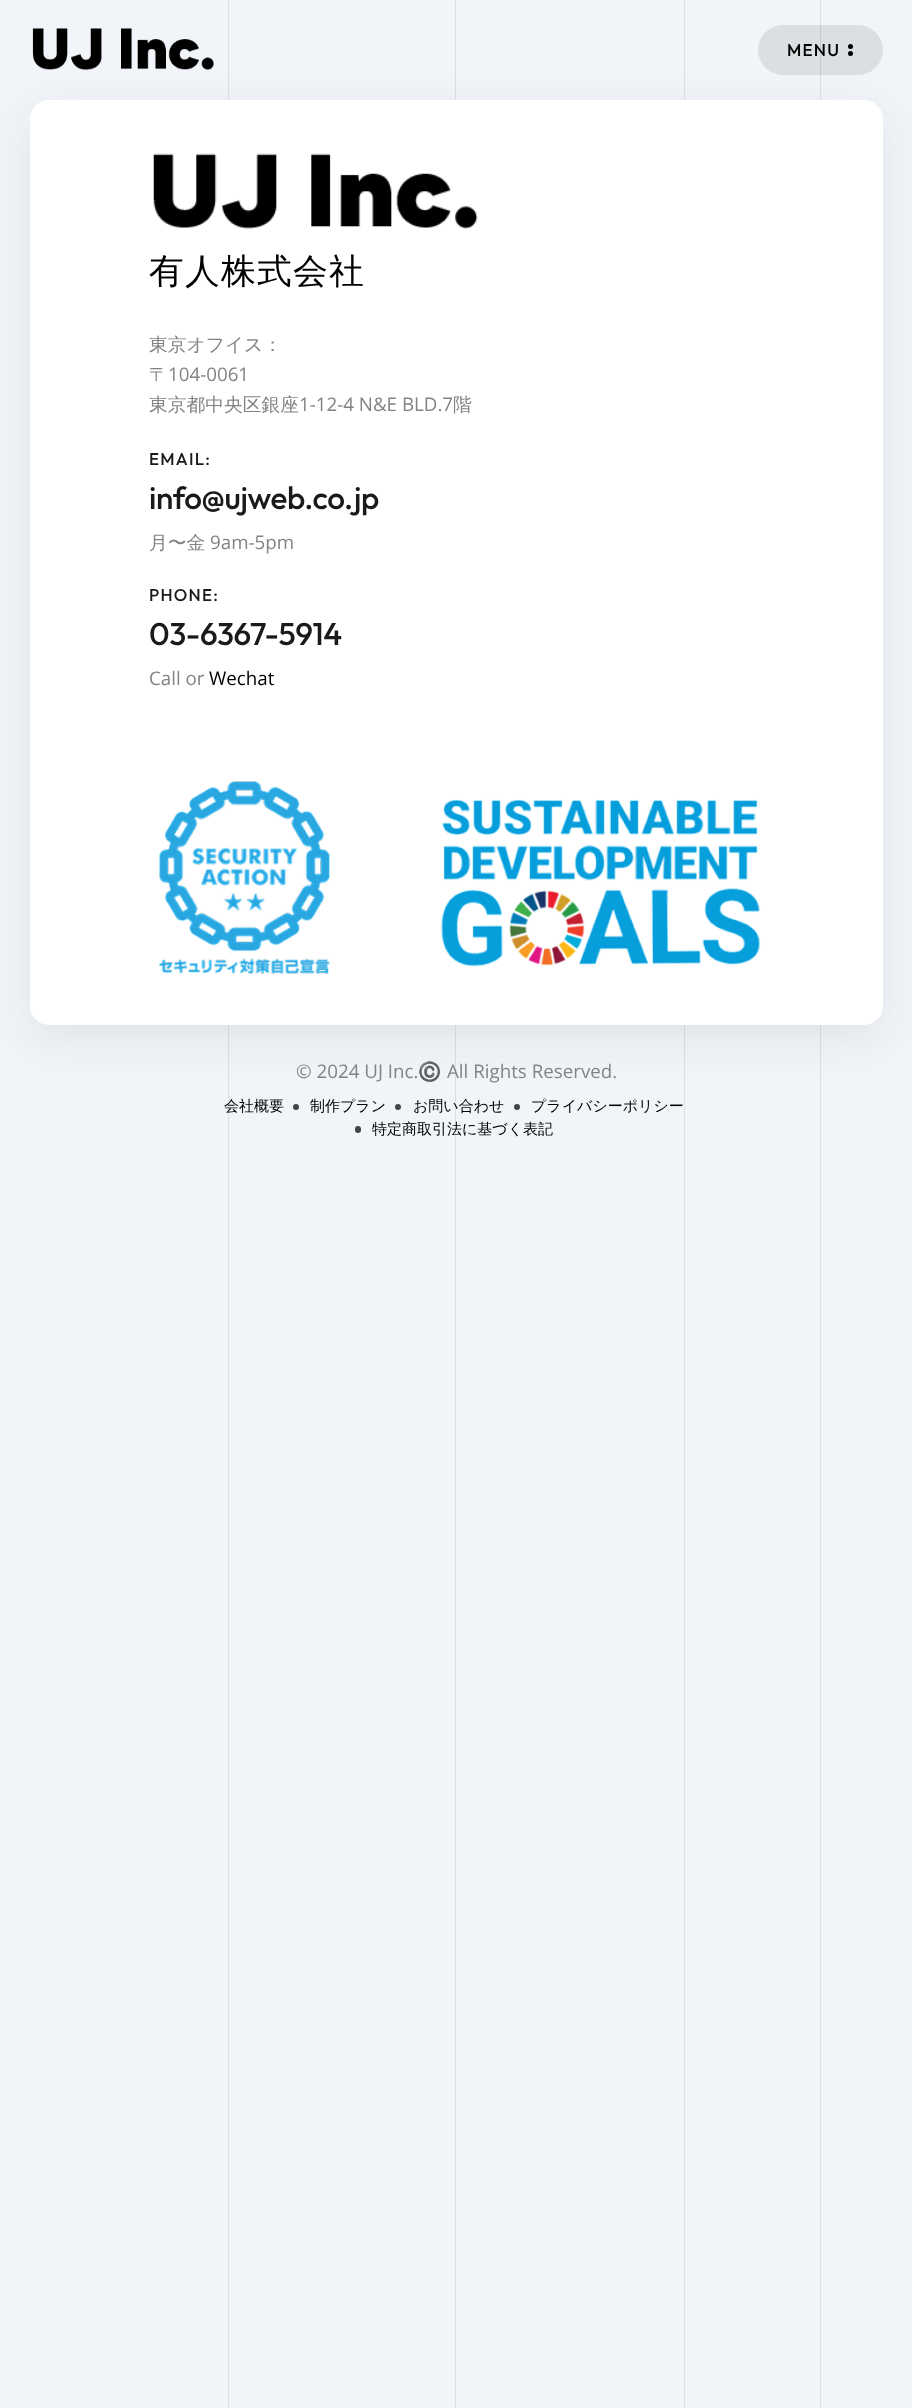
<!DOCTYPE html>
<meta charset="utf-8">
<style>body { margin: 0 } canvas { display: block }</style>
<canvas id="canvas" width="912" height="2408"></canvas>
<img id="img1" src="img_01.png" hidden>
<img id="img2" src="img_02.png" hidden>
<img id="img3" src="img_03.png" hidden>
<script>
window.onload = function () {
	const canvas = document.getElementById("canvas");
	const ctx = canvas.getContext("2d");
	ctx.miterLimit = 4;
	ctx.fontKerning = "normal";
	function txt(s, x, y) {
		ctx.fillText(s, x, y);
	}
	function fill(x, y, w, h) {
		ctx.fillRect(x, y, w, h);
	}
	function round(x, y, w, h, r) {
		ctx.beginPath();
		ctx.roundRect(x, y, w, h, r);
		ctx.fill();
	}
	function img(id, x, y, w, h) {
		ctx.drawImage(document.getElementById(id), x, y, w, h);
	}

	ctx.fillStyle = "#F1F5F9";
	fill(0, 0, 912, 2408);
	ctx.fillStyle = "#DBDFE3";
	fill(228, 0, 1, 2408);
	fill(455, 0, 1, 2408);
	fill(684, 0, 1, 2408);
	fill(820, 0, 1, 2408);
	ctx.fillStyle = "rgba(22, 24, 26, 0.08)";
	ctx.filter = "blur(22.5px)";
	ctx.beginPath();
	ctx.roundRect(30, 113, 853, 925, 19);
	ctx.fill();
	ctx.filter = "none";
	img("img1", 32, 28, 182, 43);
	ctx.fillStyle = "rgba(24, 26, 28, 0.1)";
	round(758, 25, 125, 50, 25);
	ctx.fillStyle = "#000000";
	ctx.beginPath();
	ctx.arc(850.5, 46.5, 2.5, 0, Math.PI * 2);
	ctx.fill();
	ctx.beginPath();
	ctx.arc(850.5, 53.5, 2.5, 0, Math.PI * 2);
	ctx.fill();
	ctx.fillStyle = "#FFFFFF";
	round(30, 100, 853, 925, 19);
	img("img2", 153, 153, 325, 76);
	img("img3", 159, 781, 602, 193);
	ctx.fillStyle = "#434648";
	ctx.beginPath();
	ctx.arc(296, 1107, 3, 0, Math.PI * 2);
	ctx.fill();
	ctx.beginPath();
	ctx.arc(398, 1107, 3, 0, Math.PI * 2);
	ctx.fill();
	ctx.beginPath();
	ctx.arc(517, 1107, 3, 0, Math.PI * 2);
	ctx.fill();
	round(355, 1126, 6, 7, 3);
	ctx.letterSpacing = "1.25px";
	ctx.font = "500 17px Outfit";
	ctx.fillStyle = "#000000";
	txt("MENU", 787, 56);
	ctx.font = "500 34.75px WenQuanYi Zen Hei";
	txt("有人株式会社", 149, 283);
	ctx.letterSpacing = "0px";
	ctx.font = "500 18.75px WenQuanYi Zen Hei";
	ctx.fillStyle = "#828385";
	txt("東京オフイス：", 149, 351);
	txt("〒", 149, 381);
	ctx.font = "18.75px Open Sans";
	txt("104-0061", 168, 381);
	ctx.font = "500 18.75px WenQuanYi Zen Hei";
	txt("東京都中央区銀座", 149, 411);
	ctx.font = "18.75px Open Sans";
	txt("1-12-4 N&E BLD.7", 299, 411);
	ctx.font = "500 18.75px WenQuanYi Zen Hei";
	txt("階", 453, 411);
	ctx.letterSpacing = "1.25px";
	ctx.font = "500 17px Outfit";
	ctx.fillStyle = "#181A1C";
	txt("EMAIL:", 149, 465);
	ctx.letterSpacing = "-0.4px";
	ctx.font = "500 31.5px Outfit";
	txt("info@ujweb.co.jp", 149, 509);
	ctx.letterSpacing = "0px";
	ctx.font = "500 18.75px WenQuanYi Zen Hei";
	ctx.fillStyle = "#828385";
	txt("月〜金", 149, 549);
	ctx.font = "18.75px Open Sans";
	txt("9am-5pm", 210, 549);
	ctx.letterSpacing = "1.25px";
	ctx.font = "500 17px Outfit";
	ctx.fillStyle = "#181A1C";
	txt("PHONE:", 149, 601);
	ctx.letterSpacing = "-0.4px";
	ctx.font = "500 31.5px Outfit";
	txt("03-6367-5914", 149, 645);
	ctx.letterSpacing = "0px";
	ctx.font = "18.75px Open Sans";
	ctx.fillStyle = "#828385";
	txt("Call or", 149, 685);
	ctx.fillStyle = "#000000";
	txt("Wechat", 209, 685);
	ctx.fillStyle = "#828385";
	txt("© 2024 UJ Inc.", 296, 1078);
	ctx.font = "18.75px Noto Color Emoji";
	txt("©️", 418, 1078);
	ctx.font = "18.75px Open Sans";
	txt("All Rights Reserved.", 447, 1078);
	ctx.font = "500 15px WenQuanYi Zen Hei";
	ctx.fillStyle = "#000000";
	txt("会社概要", 224, 1111);
	txt("制作プラン", 310, 1111);
	txt("お問い合わせ", 413, 1111);
	txt("プライバシーポリシー", 531, 1111);
	txt("特定商取引法に基づく表記", 372, 1134);
};
</script>
